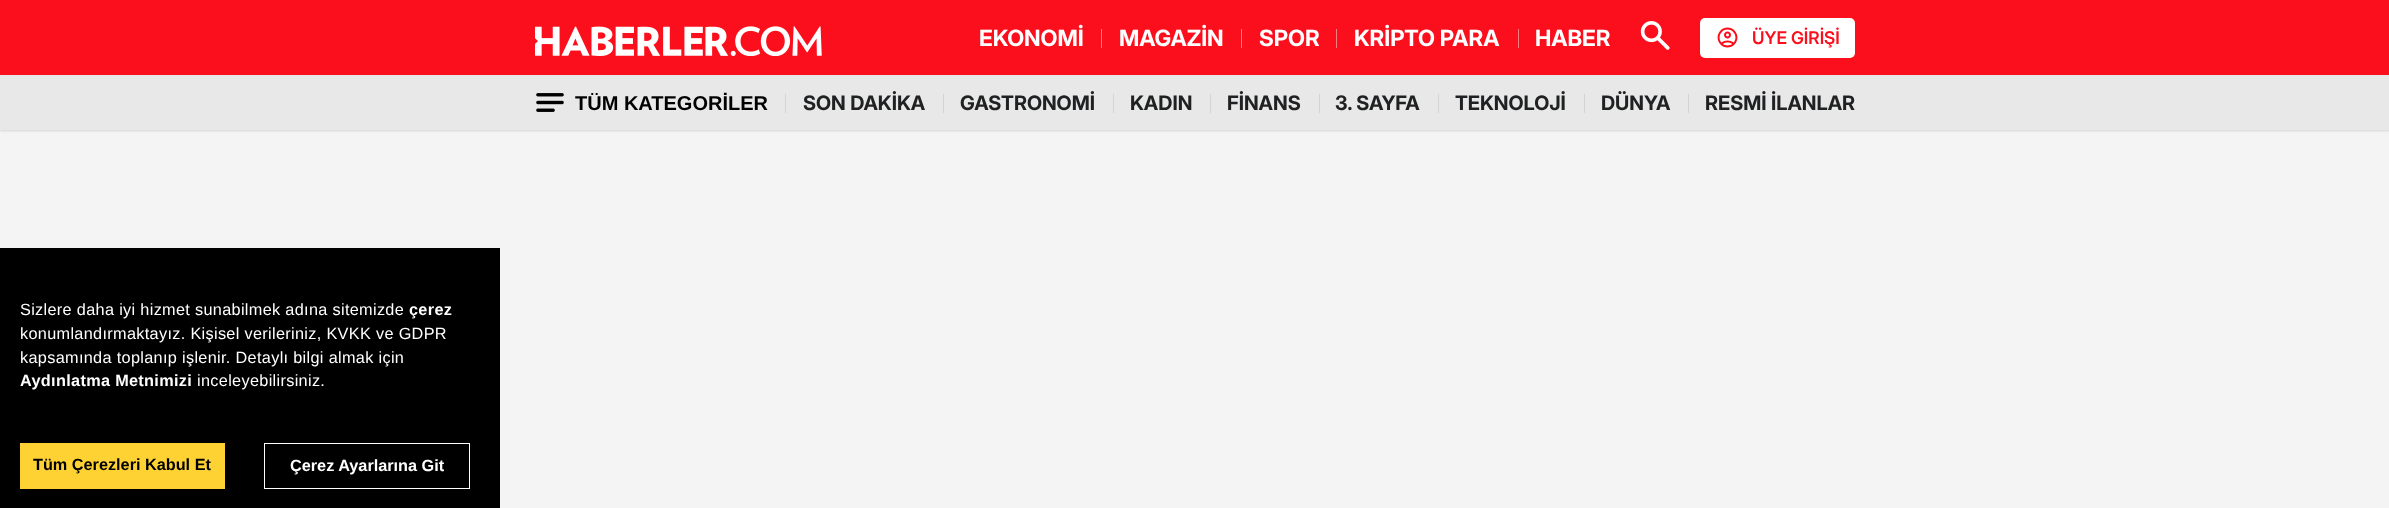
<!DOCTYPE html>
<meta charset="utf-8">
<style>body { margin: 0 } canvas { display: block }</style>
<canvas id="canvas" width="2389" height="508"></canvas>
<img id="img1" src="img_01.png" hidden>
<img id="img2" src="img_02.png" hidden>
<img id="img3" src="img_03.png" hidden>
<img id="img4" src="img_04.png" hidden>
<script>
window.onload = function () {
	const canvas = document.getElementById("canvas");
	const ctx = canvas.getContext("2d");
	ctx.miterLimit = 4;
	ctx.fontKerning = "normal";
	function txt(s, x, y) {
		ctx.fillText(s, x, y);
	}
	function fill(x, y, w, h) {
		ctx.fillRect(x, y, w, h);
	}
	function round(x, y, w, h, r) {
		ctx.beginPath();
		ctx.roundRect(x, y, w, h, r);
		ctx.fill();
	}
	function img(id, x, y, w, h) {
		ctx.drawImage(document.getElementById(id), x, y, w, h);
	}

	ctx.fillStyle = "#F4F4F4";
	fill(0, 0, 2389, 508);
	ctx.fillStyle = "#FC0F1C";
	fill(0, 0, 2389, 75);
	img("img1", 535, 26, 287, 30);
	ctx.fillStyle = "#FB7D7E";
	fill(1101, 29, 1, 19);
	fill(1241, 29, 1, 19);
	fill(1336, 29, 1, 19);
	fill(1518, 29, 1, 19);
	img("img2", 1640, 21, 30, 29);
	ctx.fillStyle = "#FFFFFF";
	round(1700, 18, 155, 40, 5);
	img("img3", 1717, 27, 21, 21);
	ctx.fillStyle = "rgba(0, 0, 0, 0.12)";
	ctx.filter = "blur(1px)";
	ctx.beginPath();
	ctx.rect(0, 76, 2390, 55);
	ctx.fill();
	ctx.filter = "none";
	ctx.fillStyle = "#E8E8E8";
	fill(0, 75, 2389, 55);
	img("img4", 536, 93, 28, 19);
	ctx.fillStyle = "#D4D4D4";
	fill(785, 94, 1, 19);
	fill(943, 94, 1, 19);
	fill(1113, 94, 1, 19);
	fill(1210, 94, 1, 19);
	fill(1319, 94, 1, 19);
	fill(1438, 94, 1, 19);
	fill(1584, 94, 1, 19);
	fill(1688, 94, 1, 19);
	ctx.fillStyle = "#000000";
	fill(0, 248, 500, 260);
	ctx.fillStyle = "#FFD234";
	fill(20, 443, 205, 46);
	ctx.strokeStyle = "#FFFFFF";
	ctx.strokeRect(264.5, 443.5, 205, 45);
	ctx.font = "bold 22.5px Inter";
	ctx.fillStyle = "#FFFFFF";
	txt("EKONOMİ", 979, 46);
	txt("MAGAZİN", 1119, 46);
	txt("SPOR", 1259, 46);
	txt("KRİPTO PARA", 1354, 46);
	txt("HABER", 1535, 46);
	ctx.font = "600 17.5px Inter";
	ctx.fillStyle = "#FC0F1C";
	txt("ÜYE GİRİŞİ", 1752, 44);
	ctx.font = "bold 20px Liberation Sans";
	ctx.fillStyle = "#000000";
	txt("TÜM KATEGORİLER", 575, 110);
	ctx.font = "bold 20px Inter";
	ctx.fillStyle = "#202122";
	txt("SON DAKİKA", 803, 110);
	txt("GASTRONOMİ", 960, 110);
	txt("KADIN", 1130, 110);
	txt("FİNANS", 1227, 110);
	txt("3. SAYFA", 1335, 110);
	txt("TEKNOLOJİ", 1455, 110);
	txt("DÜNYA", 1601, 110);
	txt("RESMİ İLANLAR", 1705, 110);
	ctx.letterSpacing = "0.33px";
	ctx.font = "16.25px Liberation Sans";
	ctx.fillStyle = "#FFFFFF";
	txt("Sizlere daha iyi hizmet sunabilmek adına sitemizde", 20, 315);
	ctx.font = "bold 16.25px Liberation Sans";
	txt("çerez", 409, 315);
	ctx.font = "16.25px Liberation Sans";
	txt("konumlandırmaktayız. Kişisel verileriniz, KVKK ve GDPR", 20, 339);
	txt("kapsamında toplanıp işlenir. Detaylı bilgi almak için", 20, 363);
	ctx.font = "bold 16.25px Liberation Sans";
	txt("Aydınlatma Metnimizi", 20, 386);
	ctx.font = "16.25px Liberation Sans";
	txt("inceleyebilirsiniz.", 197, 386);
	ctx.letterSpacing = "0px";
	ctx.font = "bold 16.25px Liberation Sans";
	ctx.fillStyle = "#000000";
	txt("Tüm Çerezleri Kabul Et", 33, 470);
	ctx.fillStyle = "#FFFFFF";
	txt("Çerez Ayarlarına Git", 290, 471);
};
</script>
